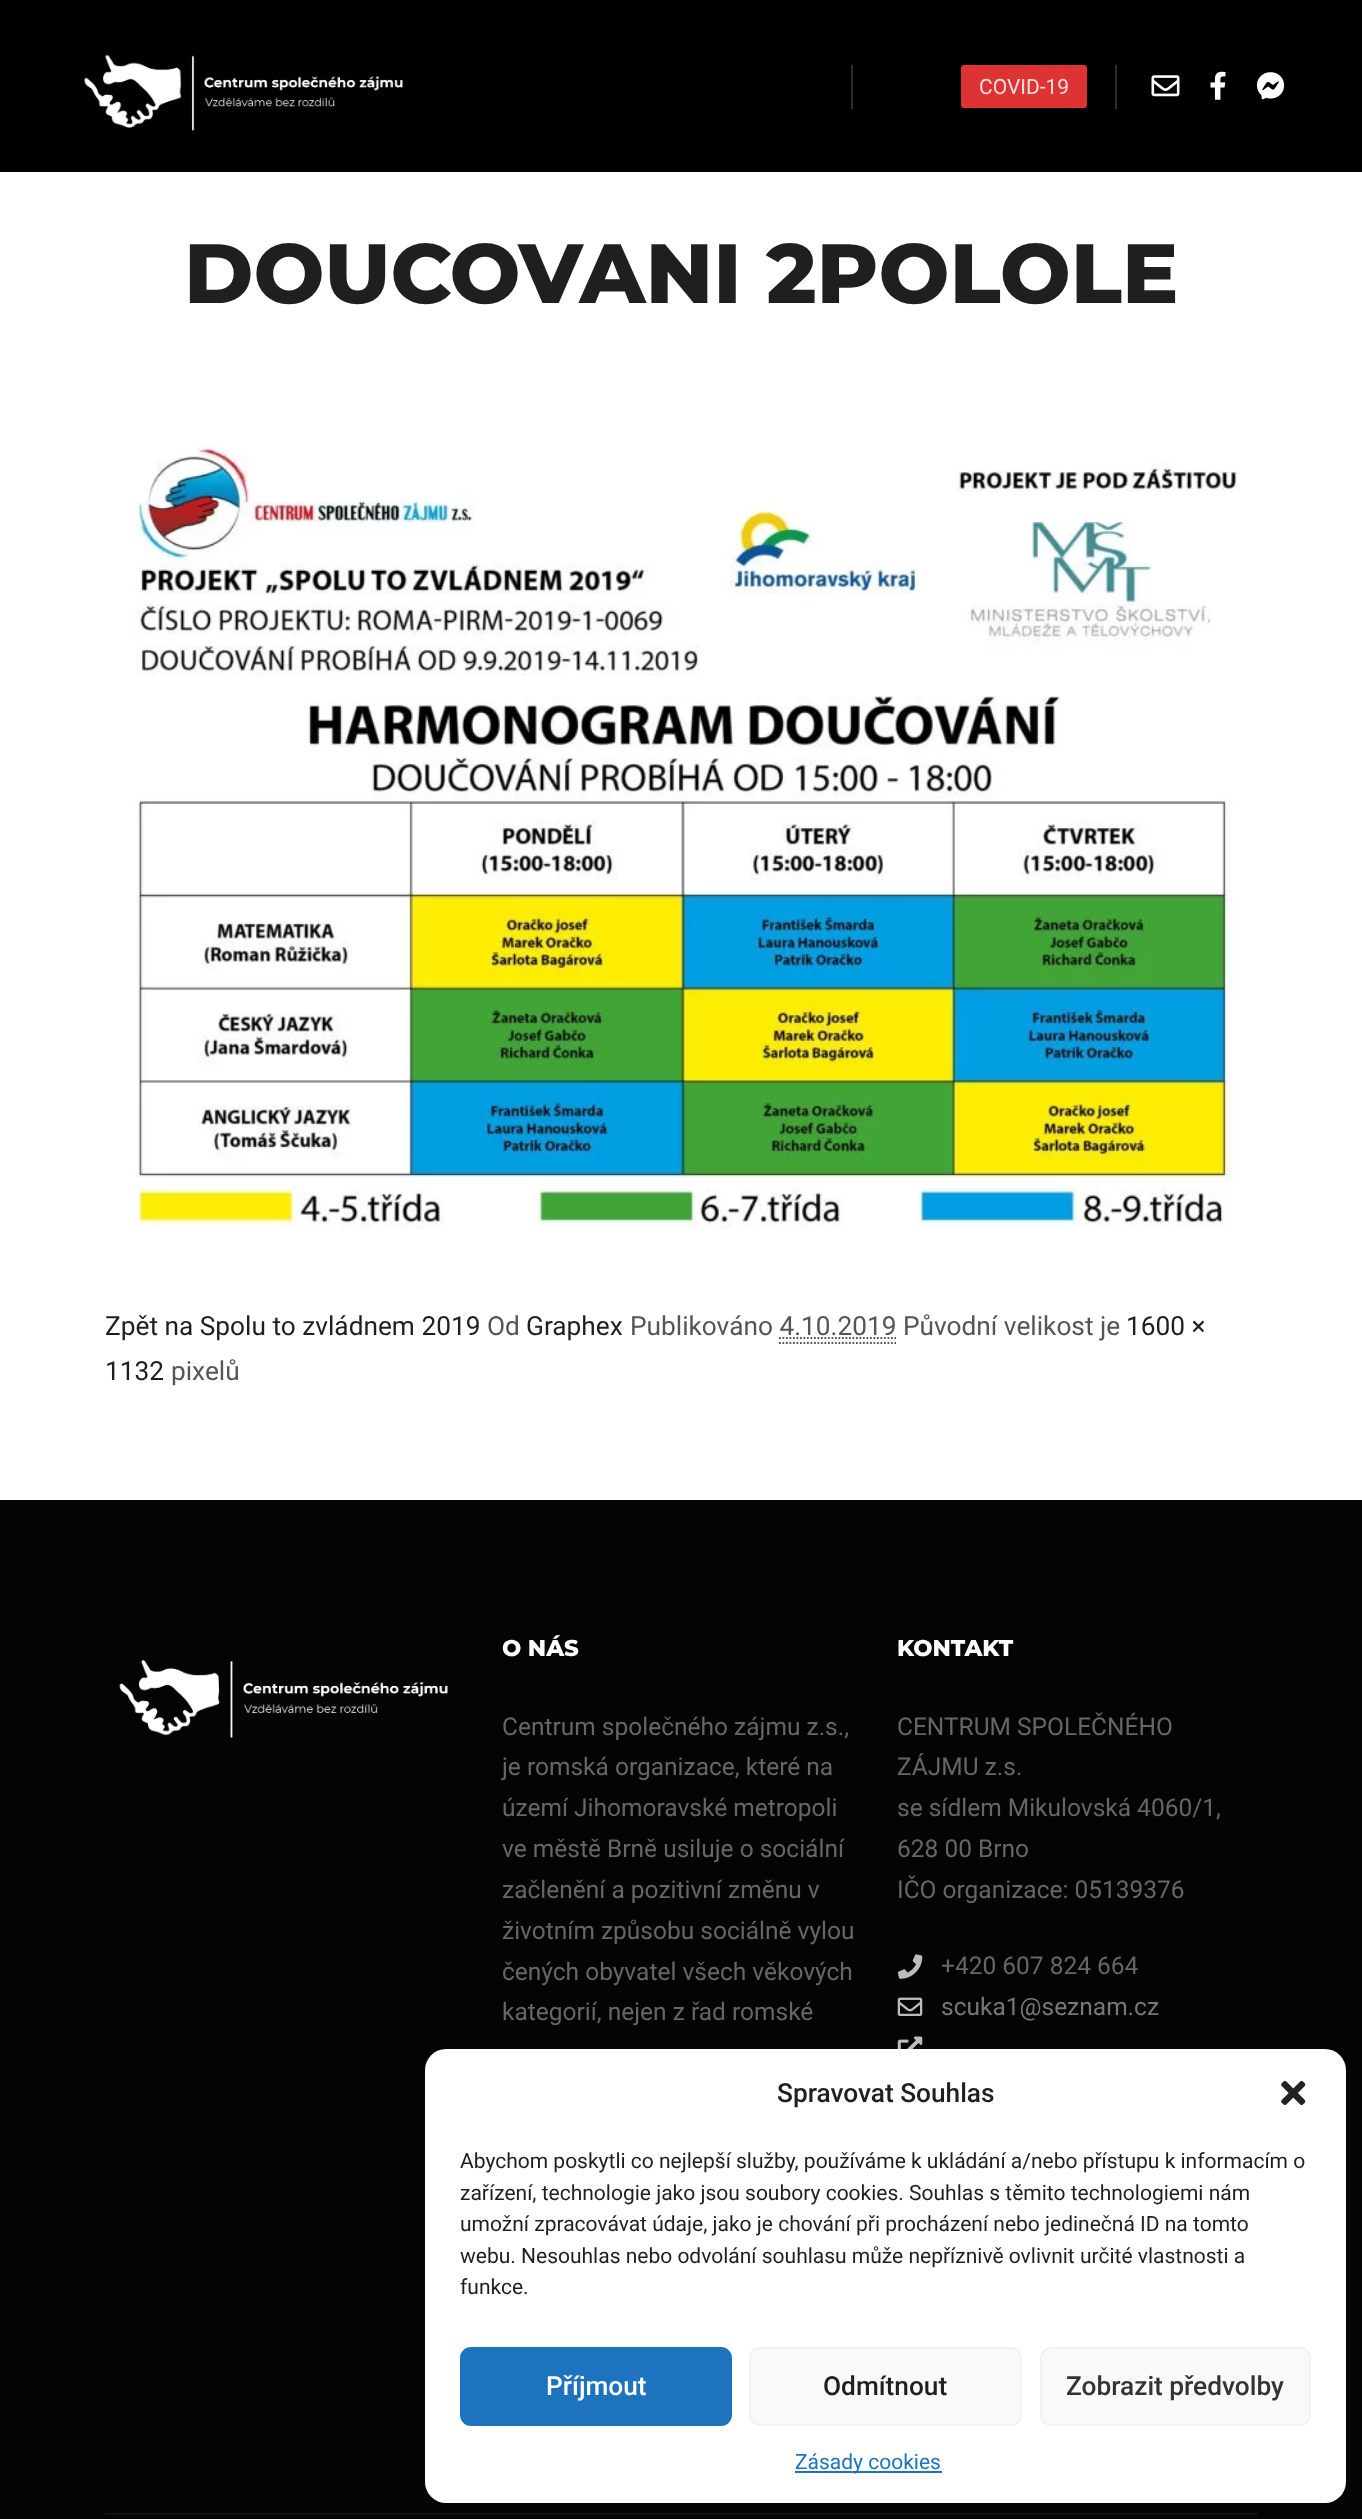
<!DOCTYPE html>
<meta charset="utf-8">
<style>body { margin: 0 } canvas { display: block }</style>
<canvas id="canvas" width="1362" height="2519"></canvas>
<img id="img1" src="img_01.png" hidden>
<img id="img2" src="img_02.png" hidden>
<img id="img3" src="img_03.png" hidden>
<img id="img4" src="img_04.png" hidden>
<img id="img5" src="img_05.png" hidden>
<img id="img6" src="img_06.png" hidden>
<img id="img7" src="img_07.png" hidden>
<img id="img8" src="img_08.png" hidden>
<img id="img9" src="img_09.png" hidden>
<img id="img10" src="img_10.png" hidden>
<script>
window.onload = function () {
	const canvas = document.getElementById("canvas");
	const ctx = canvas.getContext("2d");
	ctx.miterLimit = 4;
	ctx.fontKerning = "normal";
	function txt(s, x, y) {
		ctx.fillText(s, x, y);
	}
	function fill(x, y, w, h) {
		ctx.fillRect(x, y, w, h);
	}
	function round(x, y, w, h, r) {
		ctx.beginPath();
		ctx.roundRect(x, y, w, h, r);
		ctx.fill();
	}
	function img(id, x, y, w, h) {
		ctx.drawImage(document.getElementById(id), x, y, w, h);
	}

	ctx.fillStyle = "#FFFFFF";
	fill(0, 0, 1362, 2519);
	ctx.fillStyle = "#000000";
	fill(0, 0, 1362, 172);
	img("img1", 84, 54, 320, 77);
	ctx.fillStyle = "#2B2B2B";
	fill(851, 65, 2, 44);
	ctx.fillStyle = "#DD3333";
	ctx.beginPath();
	ctx.roundRect(960, 64, 128, 45, 4);
	ctx.fill();
	ctx.strokeStyle = "#000000";
	ctx.lineWidth = 2;
	ctx.stroke();
	ctx.fillStyle = "#2B2B2B";
	fill(1115, 65, 2, 44);
	img("img2", 1151, 75, 29, 22);
	img("img3", 1210, 71, 16, 29);
	img("img4", 1256, 72, 29, 28);
	img("img5", 135, 444, 1105, 785);
	ctx.beginPath();
	ctx.moveTo(779, 1343);
	ctx.lineTo(896, 1343);
	ctx.strokeStyle = "#555555";
	ctx.lineWidth = 1.8;
	ctx.setLineDash([1.75, 1.75]);
	ctx.stroke();
	ctx.beginPath();
	ctx.moveTo(779, 1338);
	ctx.lineTo(896, 1338);
	ctx.stroke();
	ctx.fillStyle = "#040404";
	fill(0, 1500, 1362, 1019);
	img("img6", 119, 1660, 329, 78);
	img("img7", 897, 1954, 26, 25);
	img("img8", 897, 1997, 26, 19);
	img("img9", 897, 2036, 26, 13);
	ctx.fillStyle = "#131313";
	fill(105, 2513, 1153, 2);
	ctx.fillStyle = "#FFFFFF";
	round(425, 2049, 921, 454, 21);
	img("img10", 1281, 2081, 25, 24);
	ctx.fillStyle = "#1E73BE";
	ctx.beginPath();
	ctx.roundRect(461, 2348, 270, 77, 10);
	ctx.fill();
	ctx.strokeStyle = "#1E73BE";
	ctx.lineWidth = 2;
	ctx.setLineDash([]);
	ctx.stroke();
	ctx.fillStyle = "#F9F9F9";
	ctx.beginPath();
	ctx.roundRect(750, 2348, 271, 77, 10);
	ctx.fill();
	ctx.strokeStyle = "#F2F2F2";
	ctx.stroke();
	ctx.beginPath();
	ctx.roundRect(1041, 2348, 269, 77, 10);
	ctx.fill();
	ctx.stroke();
	ctx.fillStyle = "#1E73BE";
	fill(795, 2471, 147, 2);
	ctx.font = "21px Roboto";
	ctx.fillStyle = "#FAE0E0";
	txt("COVID-19", 979, 94);
	ctx.font = "800 84px Montserrat";
	ctx.fillStyle = "#1F1F1F";
	txt("DOUCOVANI 2POLOLE", 184, 303);
	ctx.font = "26.25px Roboto";
	txt("Zpět na Spolu to zvládnem 2019", 105, 1335);
	ctx.fillStyle = "#555555";
	txt("Od", 487, 1335);
	ctx.fillStyle = "#1F1F1F";
	txt("Graphex", 526, 1335);
	ctx.fillStyle = "#555555";
	txt("Publikováno 4.10.2019 Původní velikost je", 630, 1335);
	ctx.fillStyle = "#1F1F1F";
	txt("1600 ×", 1126, 1335);
	txt("1132", 105, 1380);
	ctx.fillStyle = "#555555";
	txt("pixelů", 171, 1380);
	ctx.font = "800 22.75px Montserrat";
	ctx.fillStyle = "#FFFFFF";
	txt("O NÁS", 502, 1656);
	ctx.font = "24.5px Roboto";
	ctx.fillStyle = "#666666";
	txt("Centrum společného zájmu z.s.,", 502, 1735);
	txt("je romská organizace, které na", 502, 1775);
	txt("území Jihomoravské metropoli", 502, 1816);
	txt("ve městě Brně usiluje o sociální", 502, 1857);
	txt("začlenění a pozitivní změnu v", 502, 1898);
	txt("životním způsobu sociálně vylou", 502, 1939);
	txt("čených obyvatel všech věkových", 502, 1980);
	txt("kategorií, nejen z řad romské", 502, 2020);
	ctx.font = "800 22.75px Montserrat";
	ctx.fillStyle = "#FFFFFF";
	txt("KONTAKT", 897, 1656);
	ctx.font = "24.5px Roboto";
	ctx.fillStyle = "#666666";
	txt("CENTRUM SPOLEČNÉHO", 897, 1735);
	txt("ZÁJMU z.s.", 897, 1775);
	txt("se sídlem Mikulovská 4060/1,", 897, 1816);
	txt("628 00 Brno", 897, 1857);
	txt("IČO organizace: 05139376", 897, 1898);
	txt("+420 607 824 664", 941, 1974);
	ctx.fillStyle = "#777777";
	txt("scuka1@seznam.cz", 941, 2015);
	ctx.font = "500 26.25px Roboto";
	ctx.fillStyle = "#1F1F1F";
	txt("Spravovat Souhlas", 777, 2102);
	ctx.font = "21px Roboto";
	txt("Abychom poskytli co nejlepší služby, používáme k ukládání a/nebo přístupu k informacím o", 460, 2168);
	txt("zařízení, technologie jako jsou soubory cookies. Souhlas s těmito technologiemi nám", 460, 2200);
	txt("umožní zpracovávat údaje, jako je chování při procházení nebo jedinečná ID na tomto", 460, 2231);
	txt("webu. Nesouhlas nebo odvolání souhlasu může nepříznivě ovlivnit určité vlastnosti a", 460, 2263);
	txt("funkce.", 460, 2294);
	ctx.font = "500 26.25px Roboto";
	ctx.fillStyle = "#FFFFFF";
	txt("Příjmout", 546, 2395);
	ctx.fillStyle = "#1F1F1F";
	txt("Odmítnout", 823, 2395);
	ctx.fillStyle = "#333333";
	txt("Zobrazit předvolby", 1066, 2395);
	ctx.font = "21px Roboto";
	ctx.fillStyle = "#1E73BE";
	txt("Zásady cookies", 795, 2469);
};
</script>
